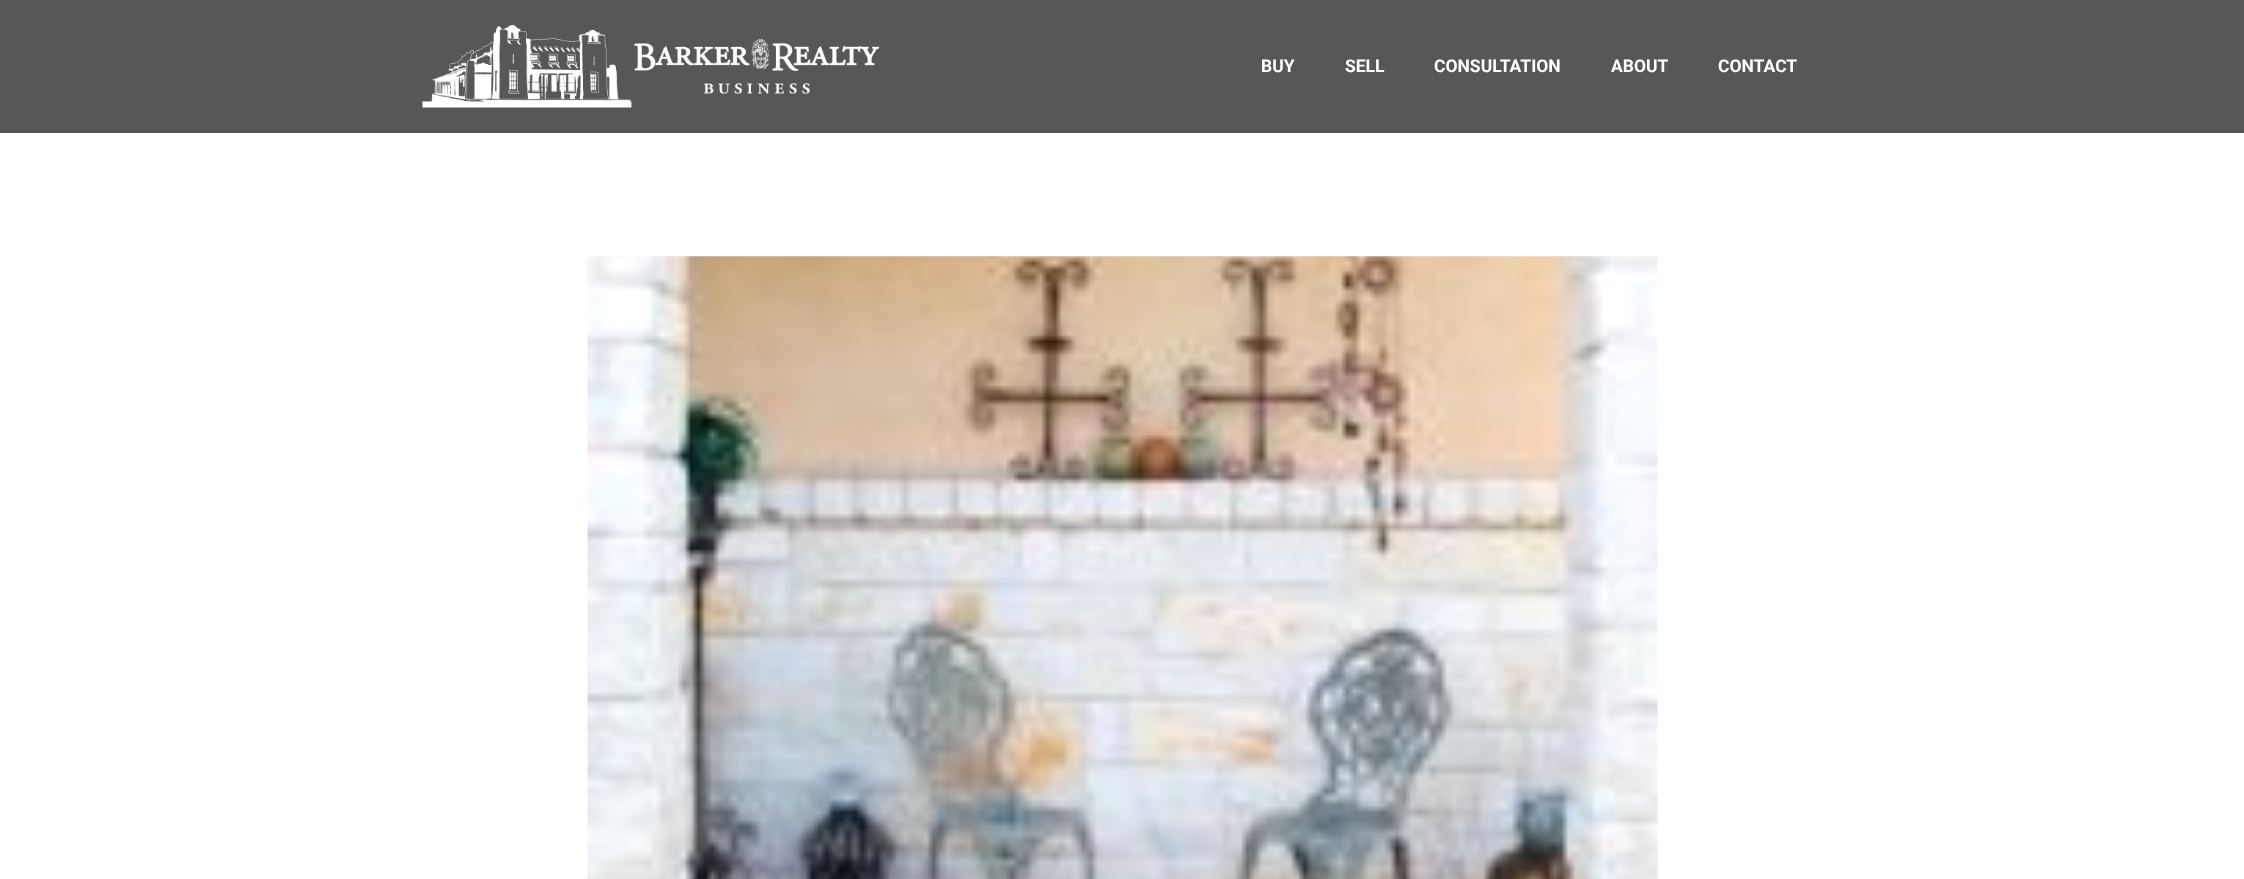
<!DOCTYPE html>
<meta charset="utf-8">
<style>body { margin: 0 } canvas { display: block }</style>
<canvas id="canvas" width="2244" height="879"></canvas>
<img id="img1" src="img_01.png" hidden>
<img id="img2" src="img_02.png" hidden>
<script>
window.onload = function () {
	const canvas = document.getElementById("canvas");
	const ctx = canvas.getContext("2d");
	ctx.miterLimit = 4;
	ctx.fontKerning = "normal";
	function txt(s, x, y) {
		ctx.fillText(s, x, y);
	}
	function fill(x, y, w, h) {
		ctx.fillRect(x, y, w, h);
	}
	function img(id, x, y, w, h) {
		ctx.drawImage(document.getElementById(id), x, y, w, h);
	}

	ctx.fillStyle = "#FFFFFF";
	fill(0, 0, 2244, 879);
	ctx.fillStyle = "#585758";
	fill(0, 0, 2244, 133);
	img("img1", 422, 25, 458, 83);
	img("img2", 587, 256, 1071, 623);
	ctx.font = "bold 17.5px Roboto";
	ctx.fillStyle = "#FFFFFF";
	txt("BUY", 1261, 72);
	txt("SELL", 1345, 72);
	txt("CONSULTATION", 1434, 72);
	txt("ABOUT", 1611, 72);
	txt("CONTACT", 1718, 72);
};
</script>
